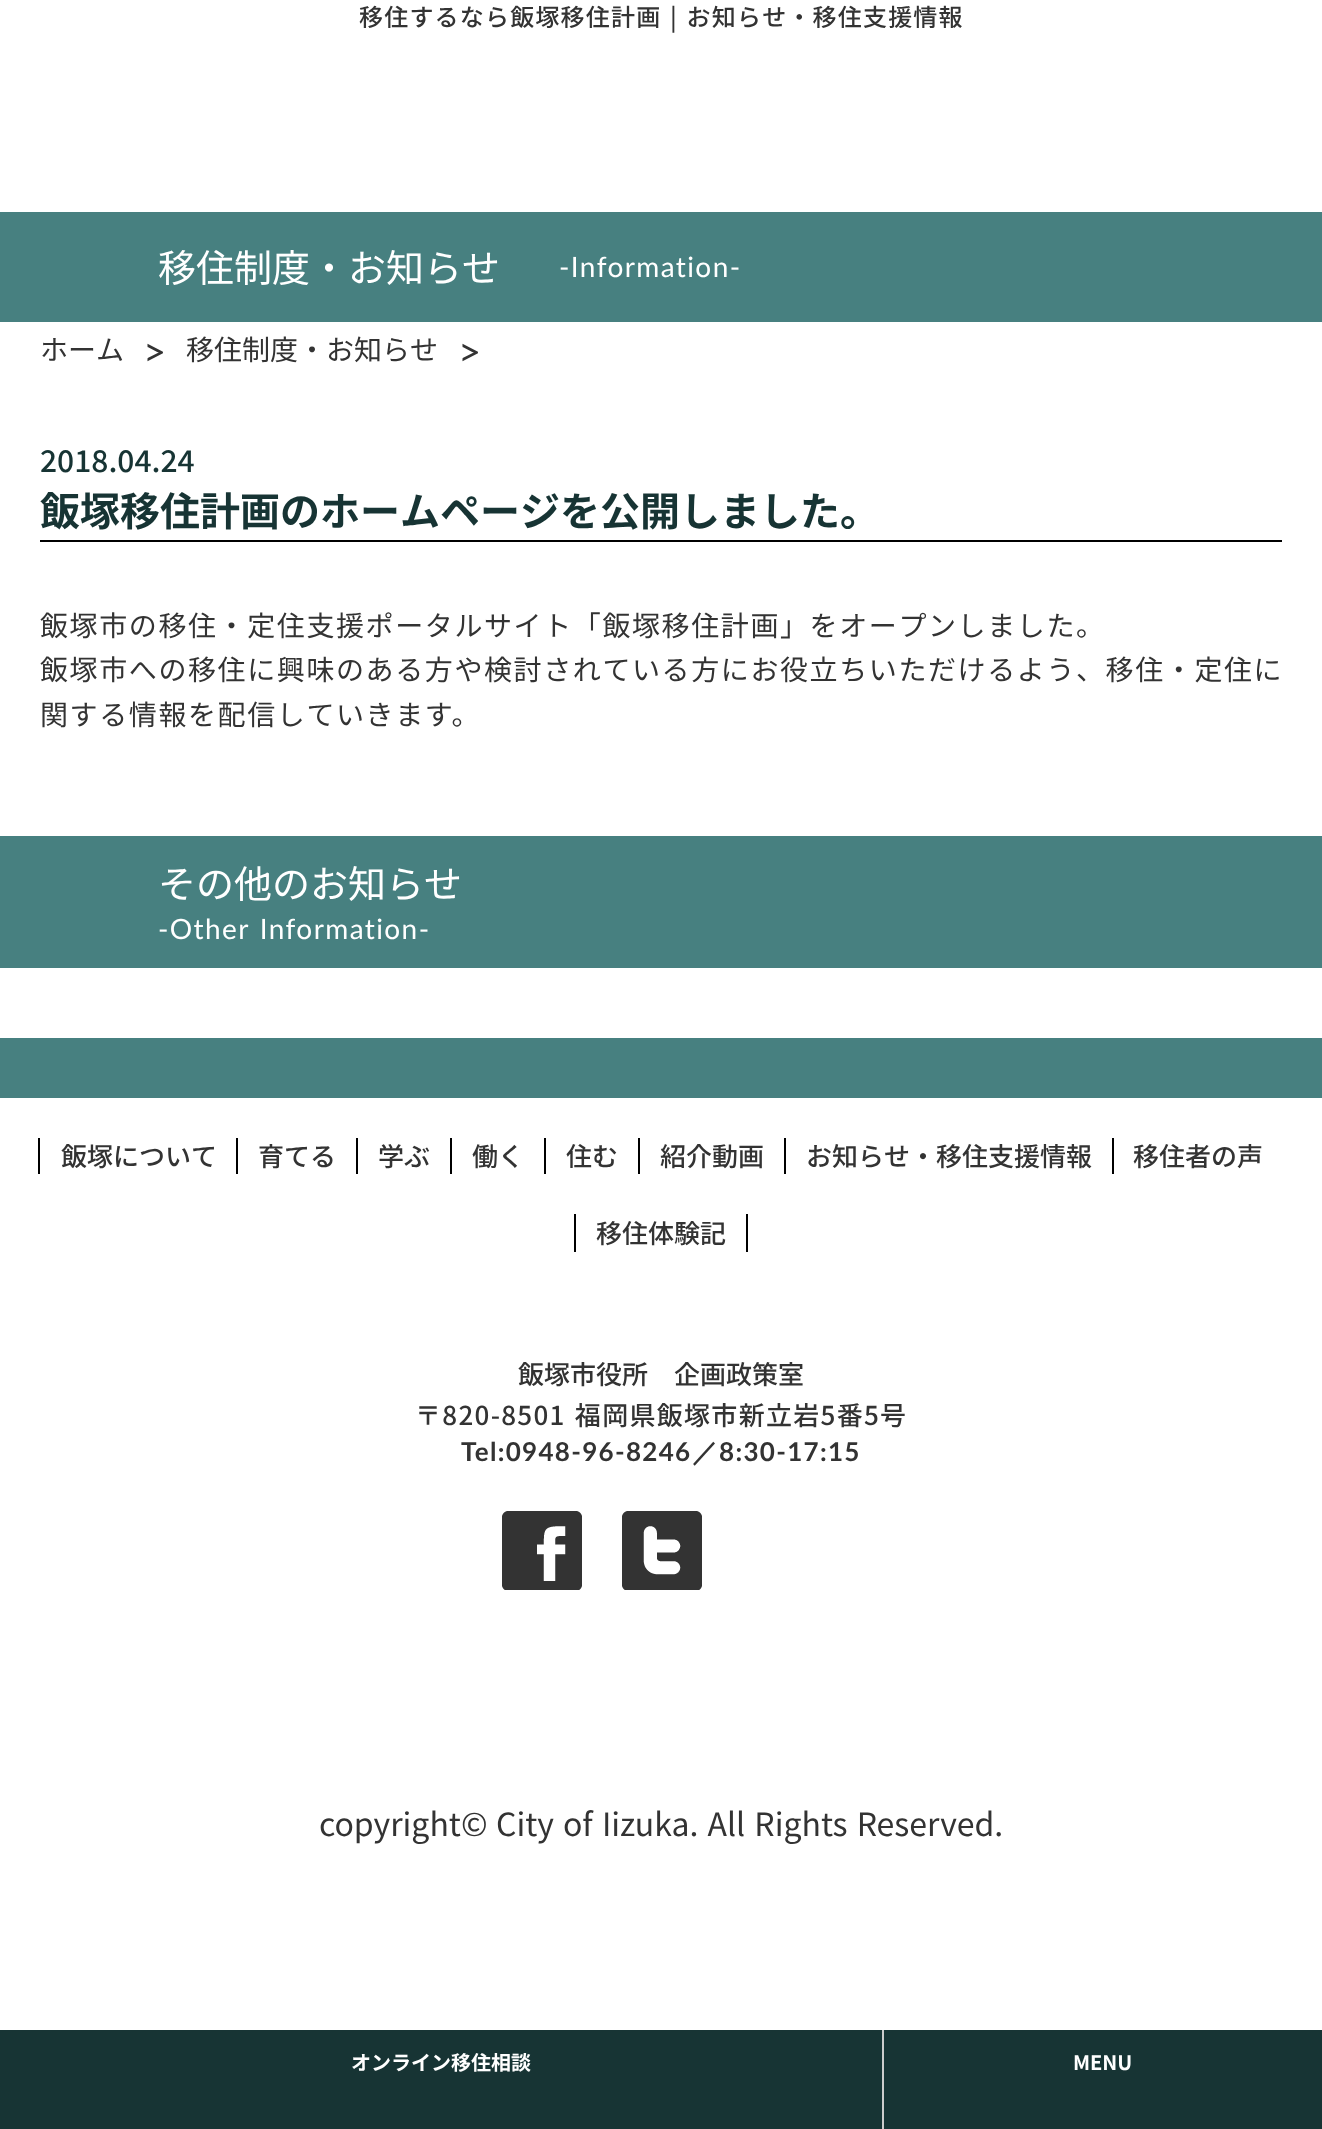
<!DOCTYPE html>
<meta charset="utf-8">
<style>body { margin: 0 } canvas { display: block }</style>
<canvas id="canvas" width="1322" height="2129"></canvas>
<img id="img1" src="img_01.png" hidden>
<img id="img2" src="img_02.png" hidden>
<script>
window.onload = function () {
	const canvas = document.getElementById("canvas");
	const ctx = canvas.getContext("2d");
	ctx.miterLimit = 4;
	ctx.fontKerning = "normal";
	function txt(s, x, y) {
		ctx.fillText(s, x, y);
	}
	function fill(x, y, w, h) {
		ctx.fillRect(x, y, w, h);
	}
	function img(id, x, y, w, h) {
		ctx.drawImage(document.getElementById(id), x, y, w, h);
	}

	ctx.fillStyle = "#FFFFFF";
	fill(0, 0, 1322, 2129);
	ctx.fillStyle = "#478080";
	fill(0, 212, 1322, 110);
	ctx.fillStyle = "#000000";
	fill(40, 540, 1242, 2);
	ctx.fillStyle = "#478080";
	fill(0, 836, 1322, 132);
	fill(0, 1038, 1322, 60);
	ctx.fillStyle = "#000000";
	fill(38, 1138, 2, 36);
	fill(236, 1138, 2, 36);
	fill(356, 1138, 2, 36);
	fill(544, 1138, 2, 36);
	fill(450, 1138, 2, 36);
	fill(638, 1138, 2, 36);
	fill(784, 1138, 2, 36);
	fill(1112, 1138, 2, 36);
	fill(746, 1214, 2, 38);
	fill(574, 1214, 2, 38);
	img("img1", 502, 1511, 80, 79);
	img("img2", 622, 1511, 80, 79);
	ctx.fillStyle = "#173434";
	fill(0, 2030, 1322, 99);
	ctx.fillStyle = "#CCCCCC";
	fill(882, 2030, 2, 99);
	ctx.letterSpacing = "1.2px";
	ctx.wordSpacing = "2px";
	ctx.font = "500 24px Noto Sans JP";
	ctx.fillStyle = "#333333";
	txt("移住するなら飯塚移住計画 | お知らせ・移住支援情報", 359, 26);
	ctx.letterSpacing = "0px";
	ctx.wordSpacing = "0px";
	ctx.font = "38px Noto Sans JP";
	ctx.fillStyle = "#FFFFFF";
	txt("移住制度・お知らせ", 158, 282);
	ctx.letterSpacing = "1.4px";
	ctx.font = "28px Lato";
	txt("-Information-", 559, 277);
	ctx.letterSpacing = "0px";
	ctx.font = "28px Noto Sans JP";
	ctx.fillStyle = "#333333";
	txt("ホーム", 40, 360);
	ctx.font = "40px Lato";
	txt(">", 143, 366);
	ctx.font = "28px Noto Sans JP";
	txt("移住制度・お知らせ", 186, 360);
	ctx.font = "40px Lato";
	txt(">", 458, 366);
	ctx.font = "500 30px Noto Sans JP";
	ctx.fillStyle = "#173434";
	txt("2018.04.24", 40, 472);
	ctx.font = "bold 40px Noto Sans JP";
	txt("飯塚移住計画のホームページを公開しました。", 40, 526);
	ctx.letterSpacing = "1.6px";
	ctx.font = "28px Noto Sans JP";
	ctx.fillStyle = "#333333";
	txt("飯塚市の移住・定住支援ポータルサイト「飯塚移住計画」をオープンしました。", 40, 636);
	txt("飯塚市への移住に興味のある方や検討されている方にお役立ちいただけるよう、移住・定住に", 40, 680);
	txt("関する情報を配信していきます。", 40, 725);
	ctx.letterSpacing = "0px";
	ctx.font = "38px Noto Sans JP";
	ctx.fillStyle = "#FFFFFF";
	txt("その他のお知らせ", 158, 898);
	ctx.letterSpacing = "1.4px";
	ctx.wordSpacing = "2px";
	ctx.font = "28px Lato";
	txt("-Other Information-", 158, 939);
	ctx.letterSpacing = "0px";
	ctx.wordSpacing = "0px";
	ctx.font = "500 26px Noto Sans JP";
	ctx.fillStyle = "#333333";
	txt("飯塚について", 61, 1166);
	txt("育てる", 258, 1166);
	txt("学ぶ", 378, 1166);
	txt("働く", 472, 1166);
	txt("住む", 566, 1166);
	txt("紹介動画", 660, 1166);
	txt("お知らせ・移住支援情報", 806, 1166);
	txt("移住者の声", 1133, 1166);
	txt("移住体験記", 596, 1243);
	txt("飯塚市役所　企画政策室", 518, 1384);
	ctx.letterSpacing = "1.3px";
	ctx.wordSpacing = "2px";
	txt("〒820-8501 福岡県飯塚市新立岩5番5号", 415, 1425);
	ctx.wordSpacing = "0px";
	ctx.font = "bold 26px Lato";
	txt("Tel:0948-96-8246", 461, 1461);
	ctx.font = "bold 26px WenQuanYi Zen Hei";
	txt("／", 692, 1461);
	ctx.font = "bold 26px Lato";
	txt("8:30-17:15", 719, 1461);
	ctx.letterSpacing = "0px";
	ctx.font = "32px Noto Sans JP";
	txt("copyright©", 319, 1836);
	ctx.wordSpacing = "2px";
	txt("City of Iizuka. All Rights Reserved.", 496, 1836);
	ctx.wordSpacing = "0px";
	ctx.font = "bold 20px Noto Sans JP";
	ctx.fillStyle = "#FFFFFF";
	txt("オンライン移住相談", 351, 2070);
	txt("MENU", 1073, 2070);
};
</script>
